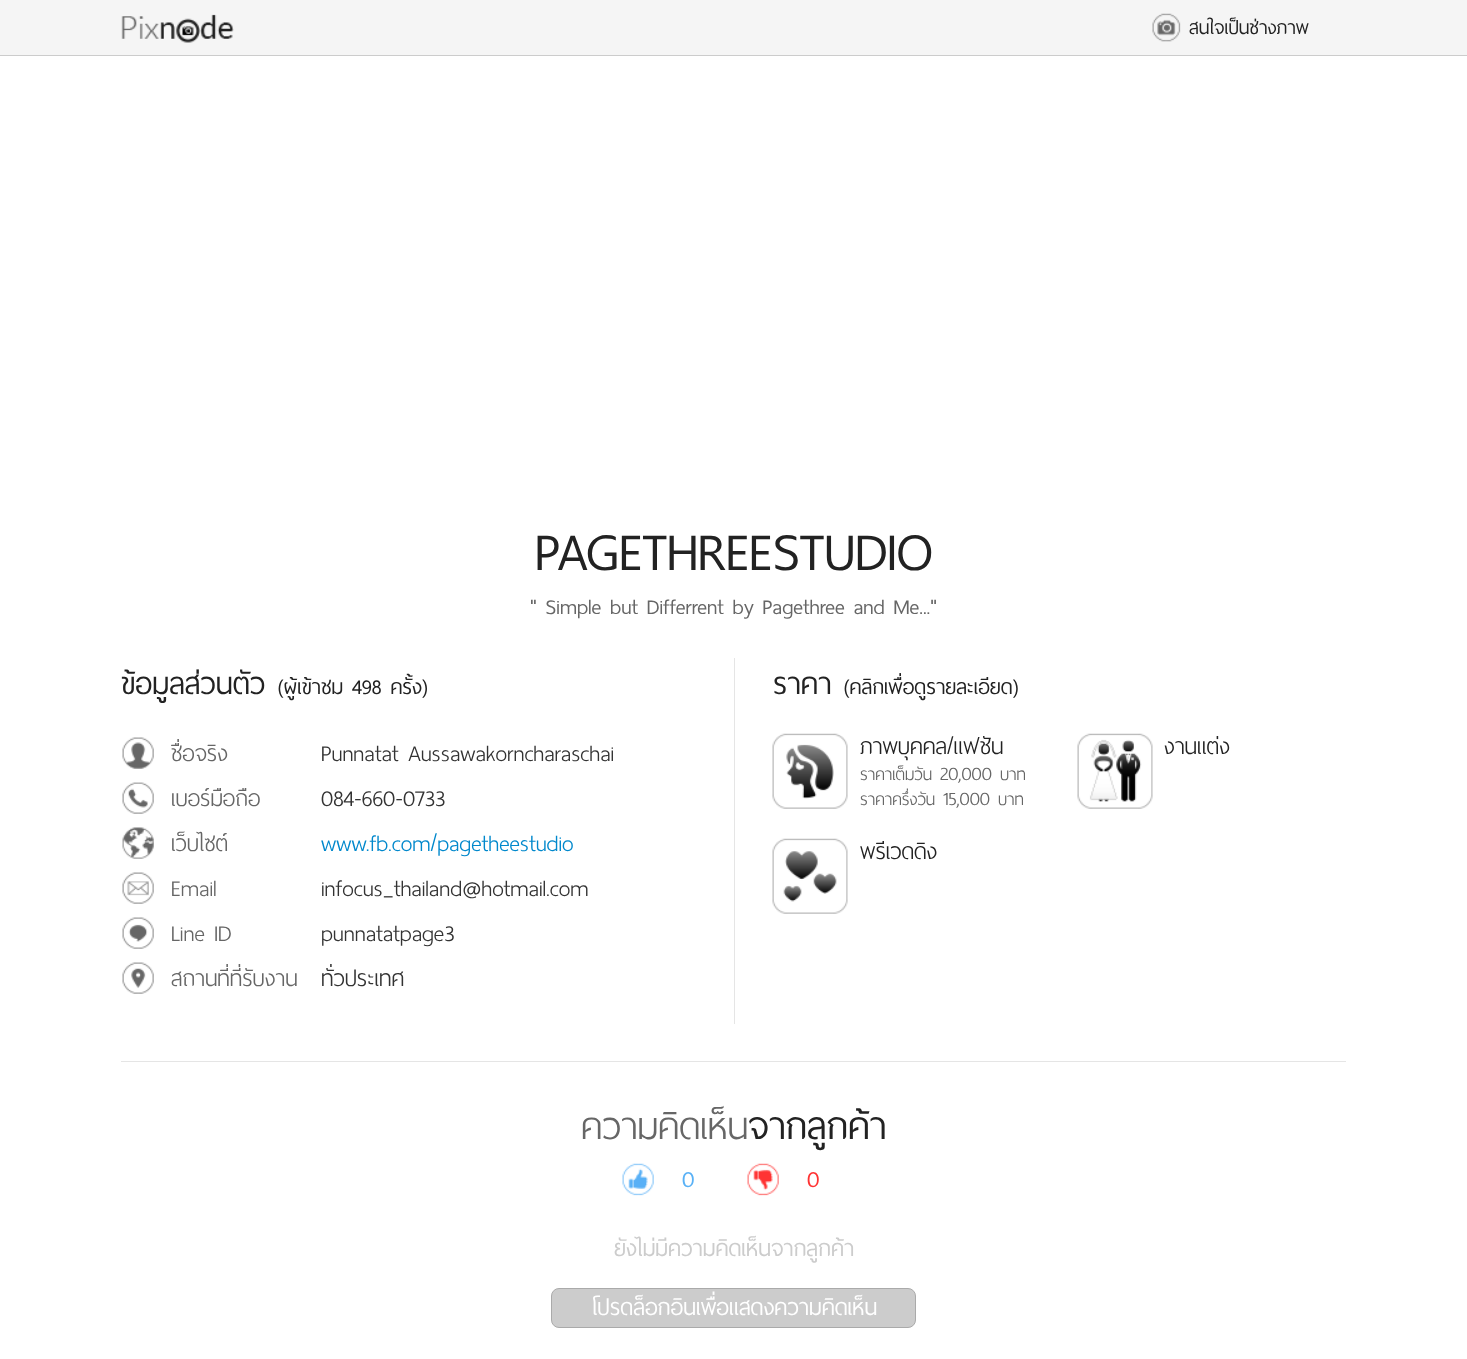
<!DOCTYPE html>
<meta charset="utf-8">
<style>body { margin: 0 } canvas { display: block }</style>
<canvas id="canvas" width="1467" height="1359"></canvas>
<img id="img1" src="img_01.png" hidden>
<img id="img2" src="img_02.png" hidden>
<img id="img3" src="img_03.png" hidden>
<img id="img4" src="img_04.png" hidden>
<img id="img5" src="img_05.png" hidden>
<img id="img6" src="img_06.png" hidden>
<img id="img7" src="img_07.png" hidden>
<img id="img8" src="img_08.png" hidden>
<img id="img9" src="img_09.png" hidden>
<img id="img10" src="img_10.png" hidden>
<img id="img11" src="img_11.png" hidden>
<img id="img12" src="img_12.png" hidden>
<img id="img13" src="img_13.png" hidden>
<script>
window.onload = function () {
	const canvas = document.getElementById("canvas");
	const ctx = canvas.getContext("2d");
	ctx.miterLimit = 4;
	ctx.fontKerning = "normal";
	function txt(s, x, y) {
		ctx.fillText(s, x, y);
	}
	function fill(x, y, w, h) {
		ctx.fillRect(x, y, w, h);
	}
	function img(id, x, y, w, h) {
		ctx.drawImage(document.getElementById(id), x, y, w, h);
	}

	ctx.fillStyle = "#F5F5F5";
	fill(0, 0, 1467, 1359);
	ctx.fillStyle = "#CCCCCC";
	fill(0, 55, 1467, 1);
	img("img1", 121, 14, 113, 29);
	img("img2", 1152, 13, 29, 29);
	ctx.fillStyle = "#FFFFFF";
	fill(0, 56, 1467, 1303);
	img("img3", 122, 737, 32, 32);
	img("img4", 122, 782, 32, 32);
	img("img5", 122, 827, 32, 32);
	img("img6", 122, 872, 32, 32);
	img("img7", 122, 917, 32, 32);
	img("img8", 122, 962, 32, 32);
	ctx.fillStyle = "#E5E5E5";
	fill(734, 658, 1, 366);
	img("img9", 772, 733, 76, 76);
	img("img10", 1077, 733, 76, 76);
	img("img11", 772, 838, 76, 76);
	fill(121, 1061, 1225, 1);
	img("img12", 622, 1163, 32, 33);
	img("img13", 747, 1163, 32, 33);
	ctx.fillStyle = "#CCCCCC";
	ctx.beginPath();
	ctx.roundRect(551.5, 1288.5, 364, 39, 7.5);
	ctx.fill();
	ctx.strokeStyle = "#AAAAAA";
	ctx.stroke();
	ctx.font = "25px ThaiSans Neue";
	ctx.fillStyle = "#222222";
	txt("สนใจเป็นช่างภาพ", 1189, 34);
	ctx.font = "70px ThaiSans Neue";
	txt("PAGETHREESTUDIO", 535, 570);
	ctx.font = "27.5px ThaiSans Neue";
	ctx.fillStyle = "#666666";
	txt("\" Simple but Differrent by Pagethree and Me...\"", 530, 614);
	ctx.font = "40px ThaiSans Neue";
	ctx.fillStyle = "#222222";
	txt("ข้อมูลส่วนตัว", 121, 694);
	ctx.font = "27.5px ThaiSans Neue";
	txt("(ผู้เข้าชม 498 ครั้ง)", 278, 694);
	ctx.font = "300 30px ThaiSans Neue";
	ctx.fillStyle = "#666666";
	txt("ชื่อจริง", 171, 761);
	ctx.fillStyle = "#333333";
	txt("Punnatat Aussawakorncharaschai", 321, 761);
	ctx.fillStyle = "#666666";
	txt("เบอร์มือถือ", 171, 806);
	ctx.fillStyle = "#333333";
	txt("084-660-0733", 321, 806);
	ctx.fillStyle = "#666666";
	txt("เว็บไซต์", 171, 851);
	ctx.fillStyle = "#0088CC";
	txt("www.fb.com/pagetheestudio", 321, 851);
	ctx.fillStyle = "#666666";
	txt("Email", 171, 896);
	ctx.fillStyle = "#333333";
	txt("infocus_thailand@hotmail.com", 321, 896);
	ctx.fillStyle = "#666666";
	txt("Line ID", 171, 941);
	ctx.fillStyle = "#333333";
	txt("punnatatpage3", 321, 941);
	ctx.fillStyle = "#666666";
	txt("สถานที่ที่รับงาน", 171, 986);
	ctx.fillStyle = "#333333";
	txt("ทั่วประเทศ", 321, 986);
	ctx.font = "40px ThaiSans Neue";
	ctx.fillStyle = "#222222";
	txt("ราคา", 773, 694);
	ctx.font = "27.5px ThaiSans Neue";
	txt("(คลิกเพื่อดูรายละเอียด)", 844, 694);
	ctx.font = "300 30px ThaiSans Neue";
	txt("ภาพบุคคล/แฟชัน", 860, 754);
	ctx.font = "300 22.5px ThaiSans Neue";
	ctx.fillStyle = "#666666";
	txt("ราคาเต็มวัน", 860, 780);
	ctx.font = "300 25px ThaiSans Neue";
	txt("20,000", 940, 780);
	ctx.font = "300 22.5px ThaiSans Neue";
	txt("บาท", 1000, 780);
	txt("ราคาครึ่งวัน", 860, 805);
	ctx.font = "300 25px ThaiSans Neue";
	txt("15,000", 943, 805);
	ctx.font = "300 22.5px ThaiSans Neue";
	txt("บาท", 998, 805);
	ctx.font = "300 30px ThaiSans Neue";
	ctx.fillStyle = "#222222";
	txt("งานแต่ง", 1164, 754);
	txt("พรีเวดดิง", 860, 859);
	ctx.font = "300 50px ThaiSans Neue";
	ctx.fillStyle = "#666666";
	txt("ความคิดเห็น", 581, 1139);
	ctx.font = "50px ThaiSans Neue";
	ctx.fillStyle = "#222222";
	txt("จากลูกค้า", 748, 1139);
	ctx.font = "30px ThaiSans Neue";
	ctx.fillStyle = "#59B1F6";
	txt("0", 682, 1187);
	ctx.fillStyle = "#FF3333";
	txt("0", 807, 1187);
	ctx.fillStyle = "#CCCCCC";
	txt("ยังไม่มีความคิดเห็นจากลูกค้า", 614, 1256);
	ctx.fillStyle = "#FFFFFF";
	txt("โปรดล็อกอินเพื่อแสดงความคิดเห็น", 591, 1315);
};
</script>
